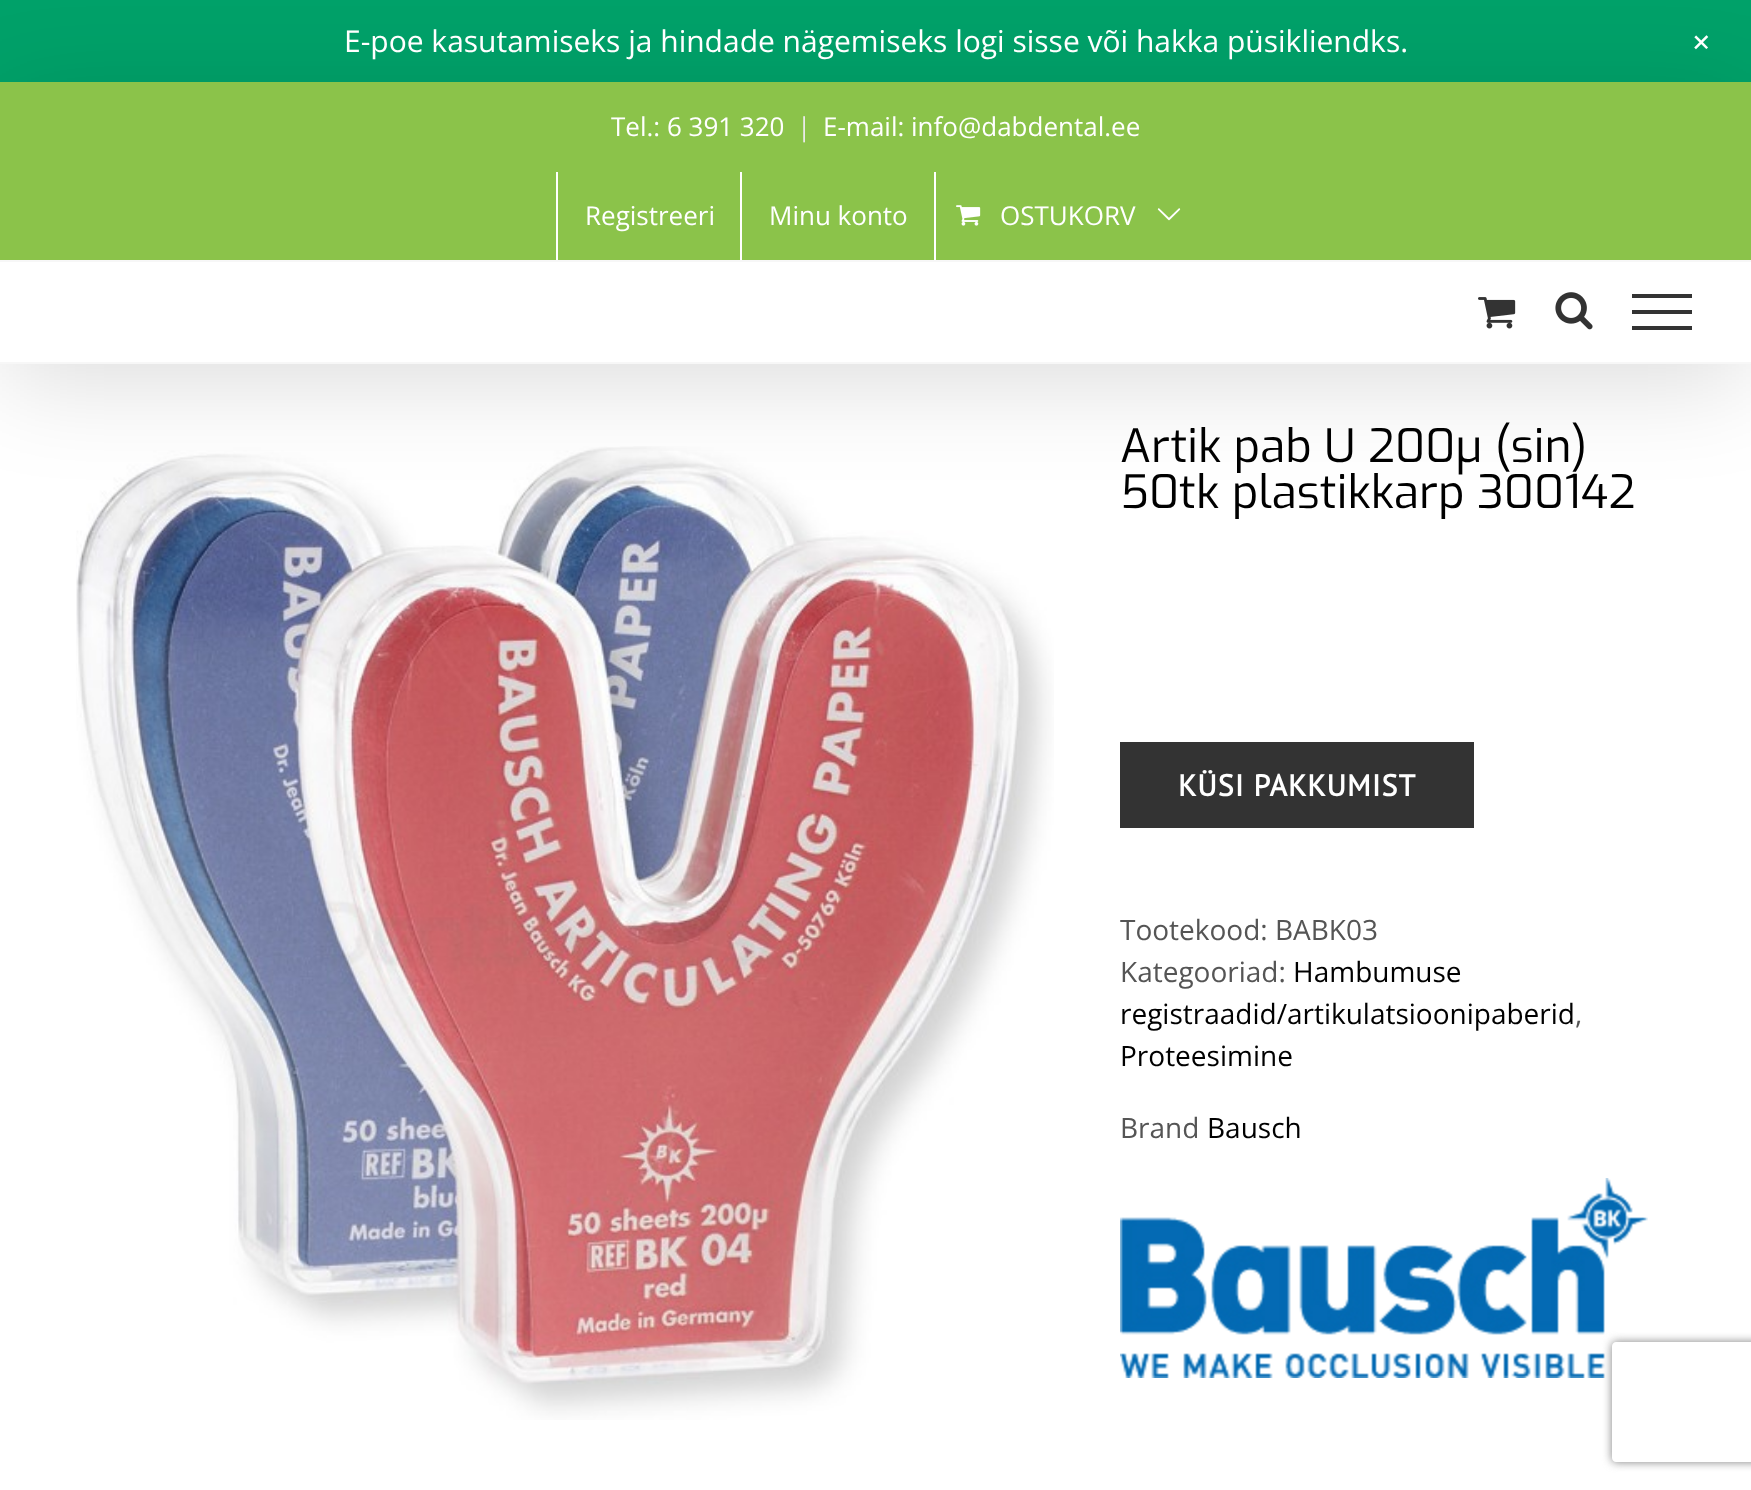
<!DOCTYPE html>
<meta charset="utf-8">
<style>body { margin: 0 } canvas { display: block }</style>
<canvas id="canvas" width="1751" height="1490"></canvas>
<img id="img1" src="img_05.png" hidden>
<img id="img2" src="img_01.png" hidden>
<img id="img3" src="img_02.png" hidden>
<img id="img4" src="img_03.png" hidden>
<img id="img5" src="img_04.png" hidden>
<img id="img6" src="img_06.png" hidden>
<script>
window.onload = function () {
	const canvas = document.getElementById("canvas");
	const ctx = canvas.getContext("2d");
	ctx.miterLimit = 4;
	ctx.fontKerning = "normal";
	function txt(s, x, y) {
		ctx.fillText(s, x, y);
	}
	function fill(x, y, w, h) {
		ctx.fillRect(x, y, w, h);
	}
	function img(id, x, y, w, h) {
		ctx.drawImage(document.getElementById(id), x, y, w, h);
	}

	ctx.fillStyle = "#FFFFFF";
	fill(0, 0, 1751, 1490);
	ctx.fillStyle = "#00A169";
	fill(0, 0, 1751, 82);
	img("img1", 76, 446, 978, 974);
	ctx.save();
	ctx.beginPath();
	ctx.moveTo(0, 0);
	ctx.lineTo(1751, 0);
	ctx.lineTo(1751, 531);
	ctx.lineTo(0, 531);
	ctx.closePath();
	ctx.moveTo(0, 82);
	ctx.lineTo(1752, 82);
	ctx.lineTo(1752, 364);
	ctx.lineTo(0, 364);
	ctx.closePath();
	ctx.clip("evenodd");
	ctx.fillStyle = "rgba(0, 0, 0, 0.14)";
	ctx.filter = "blur(50px)";
	ctx.beginPath();
	ctx.rect(4, 106, 1744, 274);
	ctx.fill();
	ctx.filter = "none";
	ctx.restore();
	ctx.fillStyle = "#8BC34A";
	fill(0, 82, 1751, 178);
	ctx.fillStyle = "#F7F7F7";
	fill(0, 260, 1751, 2);
	ctx.fillStyle = "#FFFFFF";
	fill(556, 172, 2, 88);
	fill(740, 172, 2, 88);
	fill(934, 172, 2, 88);
	img("img2", 956, 205, 25, 21);
	img("img3", 1157, 208, 24, 13);
	ctx.fillStyle = "#F7F7F7";
	fill(0, 362, 1751, 2);
	img("img4", 1478, 297, 38, 32);
	img("img5", 1555, 292, 38, 38);
	ctx.fillStyle = "#333333";
	fill(1632, 294, 60, 4);
	fill(1632, 310, 60, 4);
	fill(1632, 326, 60, 4);
	fill(1120, 742, 354, 86);
	img("img6", 1120, 1178, 528, 200);
	ctx.save();
	ctx.beginPath();
	ctx.moveTo(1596, 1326);
	ctx.lineTo(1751, 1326);
	ctx.lineTo(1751, 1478);
	ctx.lineTo(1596, 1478);
	ctx.closePath();
	ctx.moveTo(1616, 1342);
	ctx.lineTo(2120, 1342);
	ctx.bezierCurveTo(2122, 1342, 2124, 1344, 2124, 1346);
	ctx.lineTo(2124, 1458);
	ctx.bezierCurveTo(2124, 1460, 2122, 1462, 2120, 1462);
	ctx.lineTo(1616, 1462);
	ctx.bezierCurveTo(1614, 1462, 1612, 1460, 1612, 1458);
	ctx.lineTo(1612, 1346);
	ctx.bezierCurveTo(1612, 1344, 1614, 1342, 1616, 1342);
	ctx.closePath();
	ctx.clip("evenodd");
	ctx.fillStyle = "#808080";
	ctx.filter = "blur(5px)";
	ctx.beginPath();
	ctx.roundRect(1612, 1342, 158, 120, 4);
	ctx.fill();
	ctx.filter = "none";
	ctx.restore();
	ctx.font = "30px Open Sans";
	ctx.fillStyle = "#FFFFFF";
	txt("E-poe kasutamiseks ja hindade nägemiseks logi sisse või hakka püsikliendks.", 344, 52);
	ctx.font = "36px Open Sans";
	ctx.save();
	ctx.translate(1685, 44);
	ctx.rotate(45 * Math.PI / 180);
	ctx.fillText("+", 0, 0);
	ctx.restore();
	ctx.font = "26px Open Sans";
	txt("Tel.: 6 391 320", 611, 136);
	ctx.fillStyle = "#EAEAEA";
	txt("|", 797, 136);
	ctx.fillStyle = "#FFFFFF";
	txt("E-mail: info@dabdental.ee", 823, 136);
	txt("Registreeri", 585, 225);
	txt("Minu konto", 769, 225);
	txt("OSTUKORV", 1000, 225);
	ctx.font = "46px Exo";
	ctx.fillStyle = "#000000";
	txt("Artik pab U 200µ (sin)", 1120, 462);
	txt("50tk plastikkarp 300142", 1120, 508);
	ctx.letterSpacing = "1px";
	ctx.font = "bold 30px PT Sans";
	ctx.fillStyle = "#FFFFFF";
	txt("KÜSI PAKKUMIST", 1178, 796);
	ctx.letterSpacing = "0px";
	ctx.font = "28px Open Sans";
	ctx.fillStyle = "#555555";
	txt("Tootekood: BABK03", 1120, 940);
	txt("Kategooriad:", 1120, 982);
	ctx.fillStyle = "#000000";
	txt("Hambumuse", 1293, 982);
	txt("registraadid/artikulatsioonipaberid", 1120, 1024);
	ctx.fillStyle = "#555555";
	txt(",", 1575, 1024);
	ctx.fillStyle = "#000000";
	txt("Proteesimine", 1120, 1066);
	ctx.fillStyle = "#555555";
	txt("Brand", 1120, 1138);
	ctx.fillStyle = "#000000";
	txt("Bausch", 1207, 1138);
};
</script>
